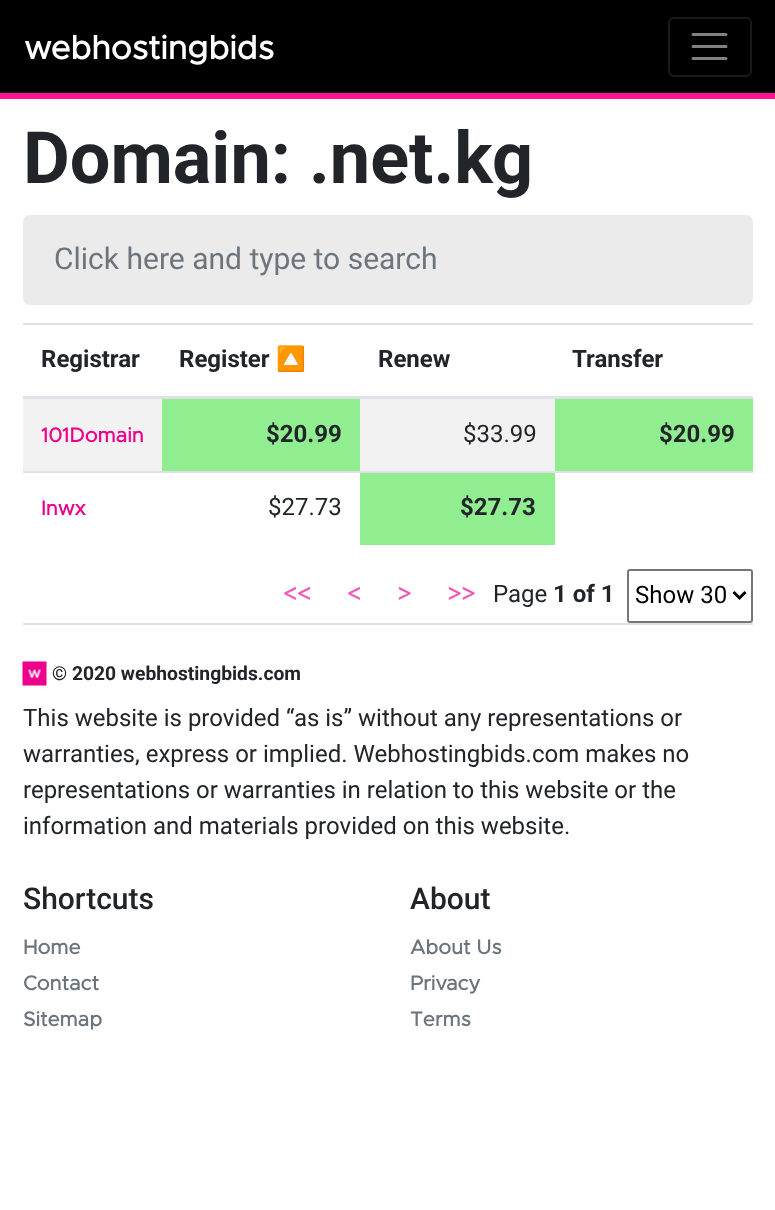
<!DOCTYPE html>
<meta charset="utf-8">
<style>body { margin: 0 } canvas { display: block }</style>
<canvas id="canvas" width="775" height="1210"></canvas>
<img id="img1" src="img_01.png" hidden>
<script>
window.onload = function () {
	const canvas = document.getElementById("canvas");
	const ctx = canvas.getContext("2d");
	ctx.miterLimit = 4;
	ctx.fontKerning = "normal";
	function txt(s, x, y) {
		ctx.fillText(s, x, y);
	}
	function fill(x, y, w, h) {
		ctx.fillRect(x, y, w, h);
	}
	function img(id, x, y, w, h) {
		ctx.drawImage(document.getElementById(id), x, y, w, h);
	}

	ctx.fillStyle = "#FFFFFF";
	fill(0, 0, 775, 1210);
	ctx.fillStyle = "#000000";
	fill(0, 0, 775, 93);
	ctx.beginPath();
	ctx.roundRect(669, 18, 82, 58, 5);
	ctx.strokeStyle = "#1A1A1A";
	ctx.lineWidth = 2;
	ctx.stroke();
	ctx.beginPath();
	ctx.moveTo(693, 34.5);
	ctx.lineTo(726, 34.5);
	ctx.moveTo(693, 46.5);
	ctx.lineTo(726, 46.5);
	ctx.moveTo(693, 58.5);
	ctx.lineTo(726, 58.5);
	ctx.strokeStyle = "#808080";
	ctx.lineWidth = 3;
	ctx.lineCap = "round";
	ctx.stroke();
	ctx.fillStyle = "#FF1493";
	fill(0, 93, 775, 6);
	ctx.fillStyle = "#EBEBEB";
	ctx.beginPath();
	ctx.roundRect(24, 216, 728, 88, 5);
	ctx.fill();
	ctx.strokeStyle = "#EBEBEB";
	ctx.lineWidth = 2;
	ctx.stroke();
	ctx.fillStyle = "#DEE2E6";
	fill(23, 323, 730, 2);
	fill(23, 396, 730, 3);
	ctx.fillStyle = "#F2F2F2";
	fill(23, 399, 532, 72);
	ctx.fillStyle = "#90EE90";
	fill(162, 399, 198, 72);
	fill(555, 399, 198, 72);
	ctx.fillStyle = "#DEE2E6";
	fill(23, 471, 730, 2);
	ctx.fillStyle = "#90EE90";
	fill(360, 473, 195, 72);
	ctx.beginPath();
	ctx.roundRect(628, 570, 124, 52, 2);
	ctx.strokeStyle = "#767676";
	ctx.stroke();
	ctx.beginPath();
	ctx.moveTo(733.5, 592);
	ctx.lineTo(739.5, 598);
	ctx.lineTo(745.5, 592);
	ctx.strokeStyle = "#000000";
	ctx.lineWidth = 3;
	ctx.lineCap = "butt";
	ctx.stroke();
	ctx.fillStyle = "#DEE2E6";
	fill(23, 623, 730, 2);
	img("img1", 22, 661, 25, 25);
	ctx.font = "bold 33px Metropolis";
	ctx.fillStyle = "#FFFFFF";
	txt("webhostingbids", 24, 59);
	ctx.font = "bold 72px Roboto";
	ctx.fillStyle = "#212529";
	txt("Domain: .net.kg", 23, 183);
	ctx.font = "30px Roboto";
	ctx.fillStyle = "#6C757D";
	txt("Click here and type to search", 54, 269);
	ctx.font = "bold 24px Roboto";
	ctx.fillStyle = "#212529";
	txt("Registrar", 41, 367);
	txt("Register", 179, 367);
	ctx.font = "bold 24px Noto Color Emoji";
	txt("🔼", 276, 367);
	ctx.font = "bold 24px Roboto";
	txt("Renew", 378, 367);
	txt("Transfer", 572, 367);
	ctx.font = "bold 20.25px Metropolis";
	ctx.fillStyle = "#EC008C";
	txt("101Domain", 41, 442);
	ctx.font = "bold 24px Roboto";
	ctx.fillStyle = "#212529";
	txt("$20.99", 266, 442);
	ctx.font = "24px Roboto";
	txt("$33.99", 463, 442);
	ctx.font = "bold 24px Roboto";
	txt("$20.99", 659, 442);
	ctx.font = "bold 20.25px Metropolis";
	ctx.fillStyle = "#EC008C";
	txt("Inwx", 41, 515);
	ctx.font = "24px Roboto";
	ctx.fillStyle = "#212529";
	txt("$27.73", 268, 515);
	ctx.font = "bold 24px Roboto";
	txt("$27.73", 460, 515);
	ctx.font = "bold 24px Metropolis";
	ctx.fillStyle = "#F359B4";
	txt("<<", 283, 602);
	txt("<", 347, 602);
	txt(">", 397, 602);
	txt(">>", 447, 602);
	ctx.font = "24px Roboto";
	ctx.fillStyle = "#212529";
	txt("Page", 493, 602);
	ctx.font = "bold 24px Roboto";
	txt("1 of 1", 553, 602);
	ctx.font = "24px Roboto";
	ctx.fillStyle = "#000000";
	txt("Show 30", 635, 603);
	ctx.font = "bold 19.25px Roboto";
	ctx.fillStyle = "#212529";
	txt("© 2020 webhostingbids.com", 52, 680);
	ctx.font = "24px Roboto";
	txt("This website is provided “as is” without any representations or", 23, 726);
	txt("warranties, express or implied. Webhostingbids.com makes no", 23, 762);
	txt("representations or warranties in relation to this website or the", 23, 798);
	txt("information and materials provided on this website.", 23, 834);
	ctx.font = "500 30px Roboto";
	txt("Shortcuts", 23, 909);
	ctx.font = "bold 20.25px Metropolis";
	ctx.fillStyle = "#6C757D";
	txt("Home", 23, 954);
	txt("Contact", 23, 990);
	txt("Sitemap", 23, 1026);
	ctx.font = "500 30px Roboto";
	ctx.fillStyle = "#212529";
	txt("About", 410, 909);
	ctx.font = "bold 20.25px Metropolis";
	ctx.fillStyle = "#6C757D";
	txt("About Us", 410, 954);
	txt("Privacy", 410, 990);
	txt("Terms", 410, 1026);
};
</script>
